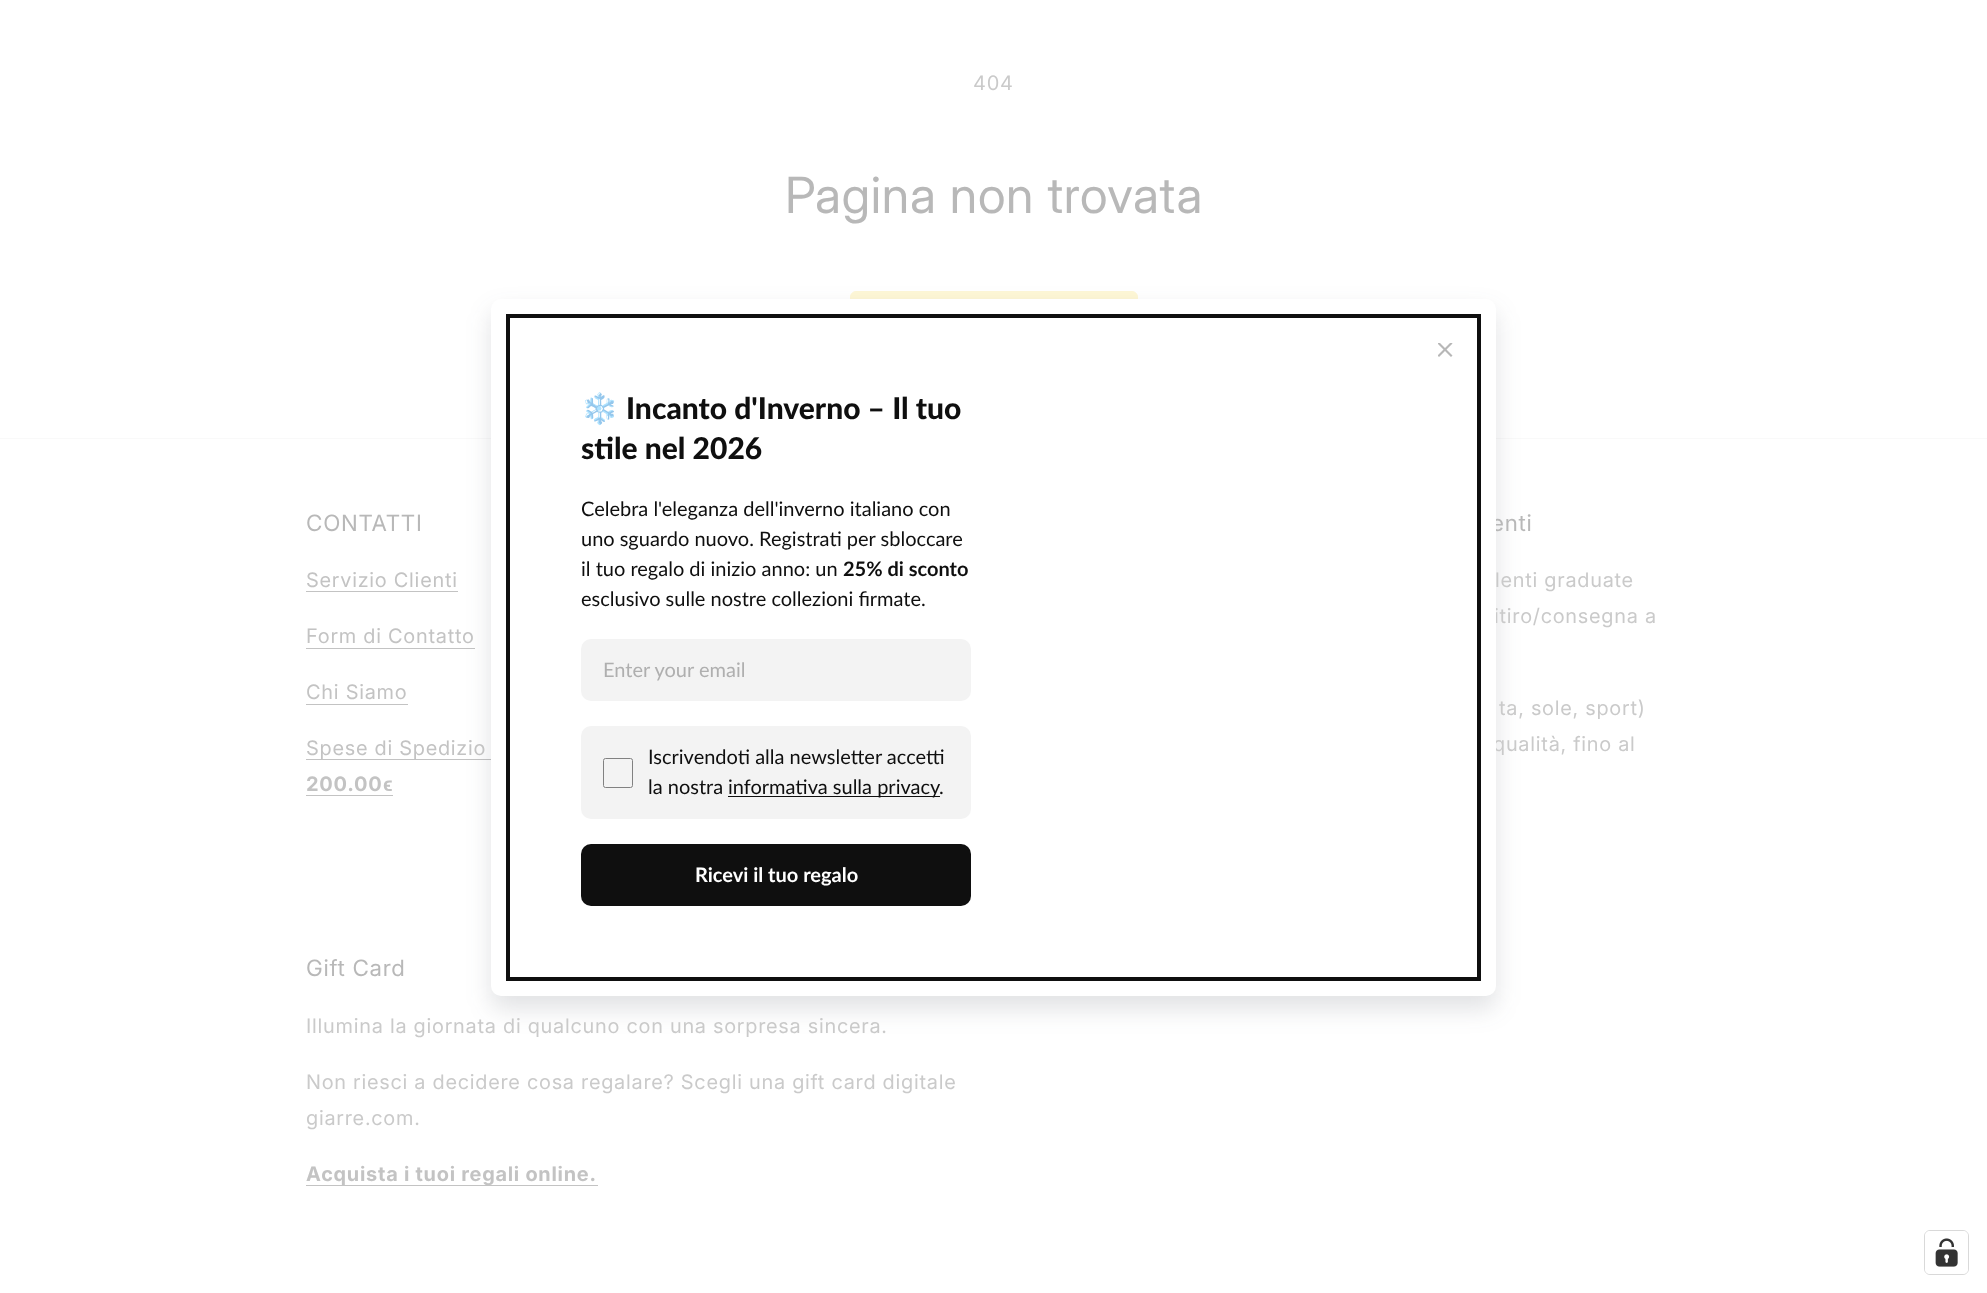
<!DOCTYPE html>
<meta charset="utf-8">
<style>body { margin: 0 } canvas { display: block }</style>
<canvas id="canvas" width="1987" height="1293"></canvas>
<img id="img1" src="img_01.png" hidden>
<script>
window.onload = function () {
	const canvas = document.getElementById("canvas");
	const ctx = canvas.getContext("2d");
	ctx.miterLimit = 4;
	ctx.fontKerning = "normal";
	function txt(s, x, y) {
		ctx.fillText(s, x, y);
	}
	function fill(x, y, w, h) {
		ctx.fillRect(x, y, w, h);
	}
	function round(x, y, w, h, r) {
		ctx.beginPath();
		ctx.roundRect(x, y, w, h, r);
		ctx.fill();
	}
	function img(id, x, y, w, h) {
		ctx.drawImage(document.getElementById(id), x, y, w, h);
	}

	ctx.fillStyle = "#FFFFFF";
	fill(0, 0, 1987, 1293);
	ctx.fillStyle = "#FEF7D6";
	ctx.beginPath();
	ctx.roundRect(850.5, 291.5, 287, 58, 5.5);
	ctx.fill();
	ctx.strokeStyle = "#FEF7D6";
	ctx.stroke();
	ctx.fillStyle = "#F9F9F9";
	fill(0, 438, 1987, 1);
	ctx.fillStyle = "#C3C3C3";
	fill(306, 591, 152, 1);
	fill(306, 648, 169, 1);
	fill(306, 759, 185, 1);
	ctx.fillStyle = "rgba(54, 61, 77, 0.15)";
	ctx.filter = "blur(12.5px)";
	ctx.beginPath();
	ctx.roundRect(491, 311, 1005, 698, 10);
	ctx.fill();
	ctx.filter = "none";
	ctx.fillStyle = "#C3C3C3";
	fill(306, 704, 102, 1);
	fill(306, 795, 87, 1);
	fill(306, 1185, 292, 1);
	ctx.beginPath();
	ctx.roundRect(1924.5, 1230.5, 44, 44, 5.5);
	ctx.strokeStyle = "#D9D9D9";
	ctx.stroke();
	ctx.fillStyle = "#FFFFFF";
	round(1925, 1231, 43, 43, 5);
	img("img1", 1935, 1238, 23, 29);
	ctx.letterSpacing = "0.75px";
	ctx.font = "20px Inter";
	ctx.fillStyle = "#CACACA";
	txt("404", 973, 90);
	ctx.font = "50px 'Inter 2'";
	ctx.fillStyle = "#B8B8B8";
	txt("Pagina non trovata", 785, 213);
	ctx.font = "22.5px 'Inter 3'";
	txt("CONTATTI", 306, 531);
	ctx.font = "20px 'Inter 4'";
	ctx.fillStyle = "#C3C3C3";
	txt("Servizio Clienti", 306, 587);
	txt("Form di Contatto", 306, 643);
	txt("Chi Siamo", 306, 699);
	txt("Spese di Spedizio", 306, 755);
	ctx.font = "bold 20px Inter";
	txt("200.00", 306, 791);
	ctx.font = "bold 20px Liberation Sans";
	txt("ϵ", 383, 791);
	ctx.font = "22.5px 'Inter 3'";
	ctx.fillStyle = "#B8B8B8";
	txt("enti", 1491, 531);
	ctx.font = "20px 'Inter 4'";
	ctx.fillStyle = "#CACACA";
	txt("lenti graduate", 1495, 587);
	txt("itiro/consegna a", 1494, 623);
	txt("ta, sole, sport)", 1499, 715);
	txt("qualità, fino al", 1493, 751);
	ctx.fillStyle = "#FFFFFF";
	round(491, 299, 1005, 697, 10);
	ctx.strokeStyle = "#0F0F0F";
	ctx.lineWidth = 4;
	ctx.strokeRect(508, 316, 971, 663);
	ctx.fillStyle = "#B7B7B7";
	ctx.beginPath();
	ctx.moveTo(1438, 343);
	ctx.lineTo(1438, 344);
	ctx.lineTo(1443.5, 349.5);
	ctx.lineTo(1438, 355);
	ctx.lineTo(1438, 356);
	ctx.lineTo(1439, 357);
	ctx.lineTo(1445, 351);
	ctx.lineTo(1451, 357);
	ctx.lineTo(1452.5, 355.5);
	ctx.lineTo(1446.5, 349.5);
	ctx.lineTo(1452.5, 343.5);
	ctx.lineTo(1452, 343);
	ctx.lineTo(1450, 343);
	ctx.lineTo(1445, 348);
	ctx.lineTo(1440, 343);
	ctx.closePath();
	ctx.fill();
	ctx.fillStyle = "#0F0F0F";
	round(581, 844, 390, 62, 10);
	ctx.letterSpacing = "0px";
	ctx.font = "bold 20px Lato";
	ctx.fillStyle = "#FFFFFF";
	txt("Ricevi il tuo regalo", 695, 882);
	ctx.fillStyle = "#F3F3F3";
	round(581, 726, 390, 93, 10);
	ctx.font = "20px Lato";
	ctx.fillStyle = "#0F0F0F";
	txt(".", 939, 794);
	fill(728, 796, 212, 1);
	txt("informativa sulla privacy", 728, 794);
	txt("la nostra", 648, 794);
	txt("Iscrivendoti alla newsletter accetti", 648, 764);
	ctx.beginPath();
	ctx.roundRect(603.5, 758.5, 29, 29, 2);
	ctx.strokeStyle = "#818181";
	ctx.lineWidth = 1;
	ctx.stroke();
	ctx.fillStyle = "#F3F3F3";
	round(581, 639, 390, 62, 10);
	ctx.fillStyle = "#AFAFAF";
	txt("Enter your email", 603, 677);
	ctx.fillStyle = "#0F0F0F";
	txt("esclusivo sulle nostre collezioni firmate.", 581, 606);
	ctx.font = "bold 20px Lato";
	txt("25% di sconto", 843, 576);
	ctx.font = "20px Lato";
	txt("il tuo regalo di inizio anno: un", 581, 576);
	txt("uno sguardo nuovo. Registrati per sbloccare", 581, 546);
	txt("Celebra l'eleganza dell'inverno italiano con", 581, 516);
	ctx.font = "900 30px Lato";
	txt("stile nel 2026", 581, 459);
	txt("Incanto d'Inverno – Il tuo", 626, 419);
	ctx.font = "bold 30px Noto Color Emoji";
	txt("❄️", 581, 419);
	ctx.letterSpacing = "0.75px";
	ctx.font = "22.5px 'Inter 3'";
	ctx.fillStyle = "#B8B8B8";
	txt("Gift Card", 306, 976);
	ctx.font = "20px 'Inter 4'";
	ctx.fillStyle = "#CACACA";
	txt("Illumina la giornata di qualcuno con una sorpresa sincera.", 306, 1033);
	txt("Non riesci a decidere cosa regalare? Scegli una gift card digitale", 306, 1089);
	txt("giarre.com.", 306, 1125);
	ctx.font = "bold 20px 'Inter 2'";
	ctx.fillStyle = "#C3C3C3";
	txt("Acquista i tuoi regali online.", 306, 1181);
};
</script>
